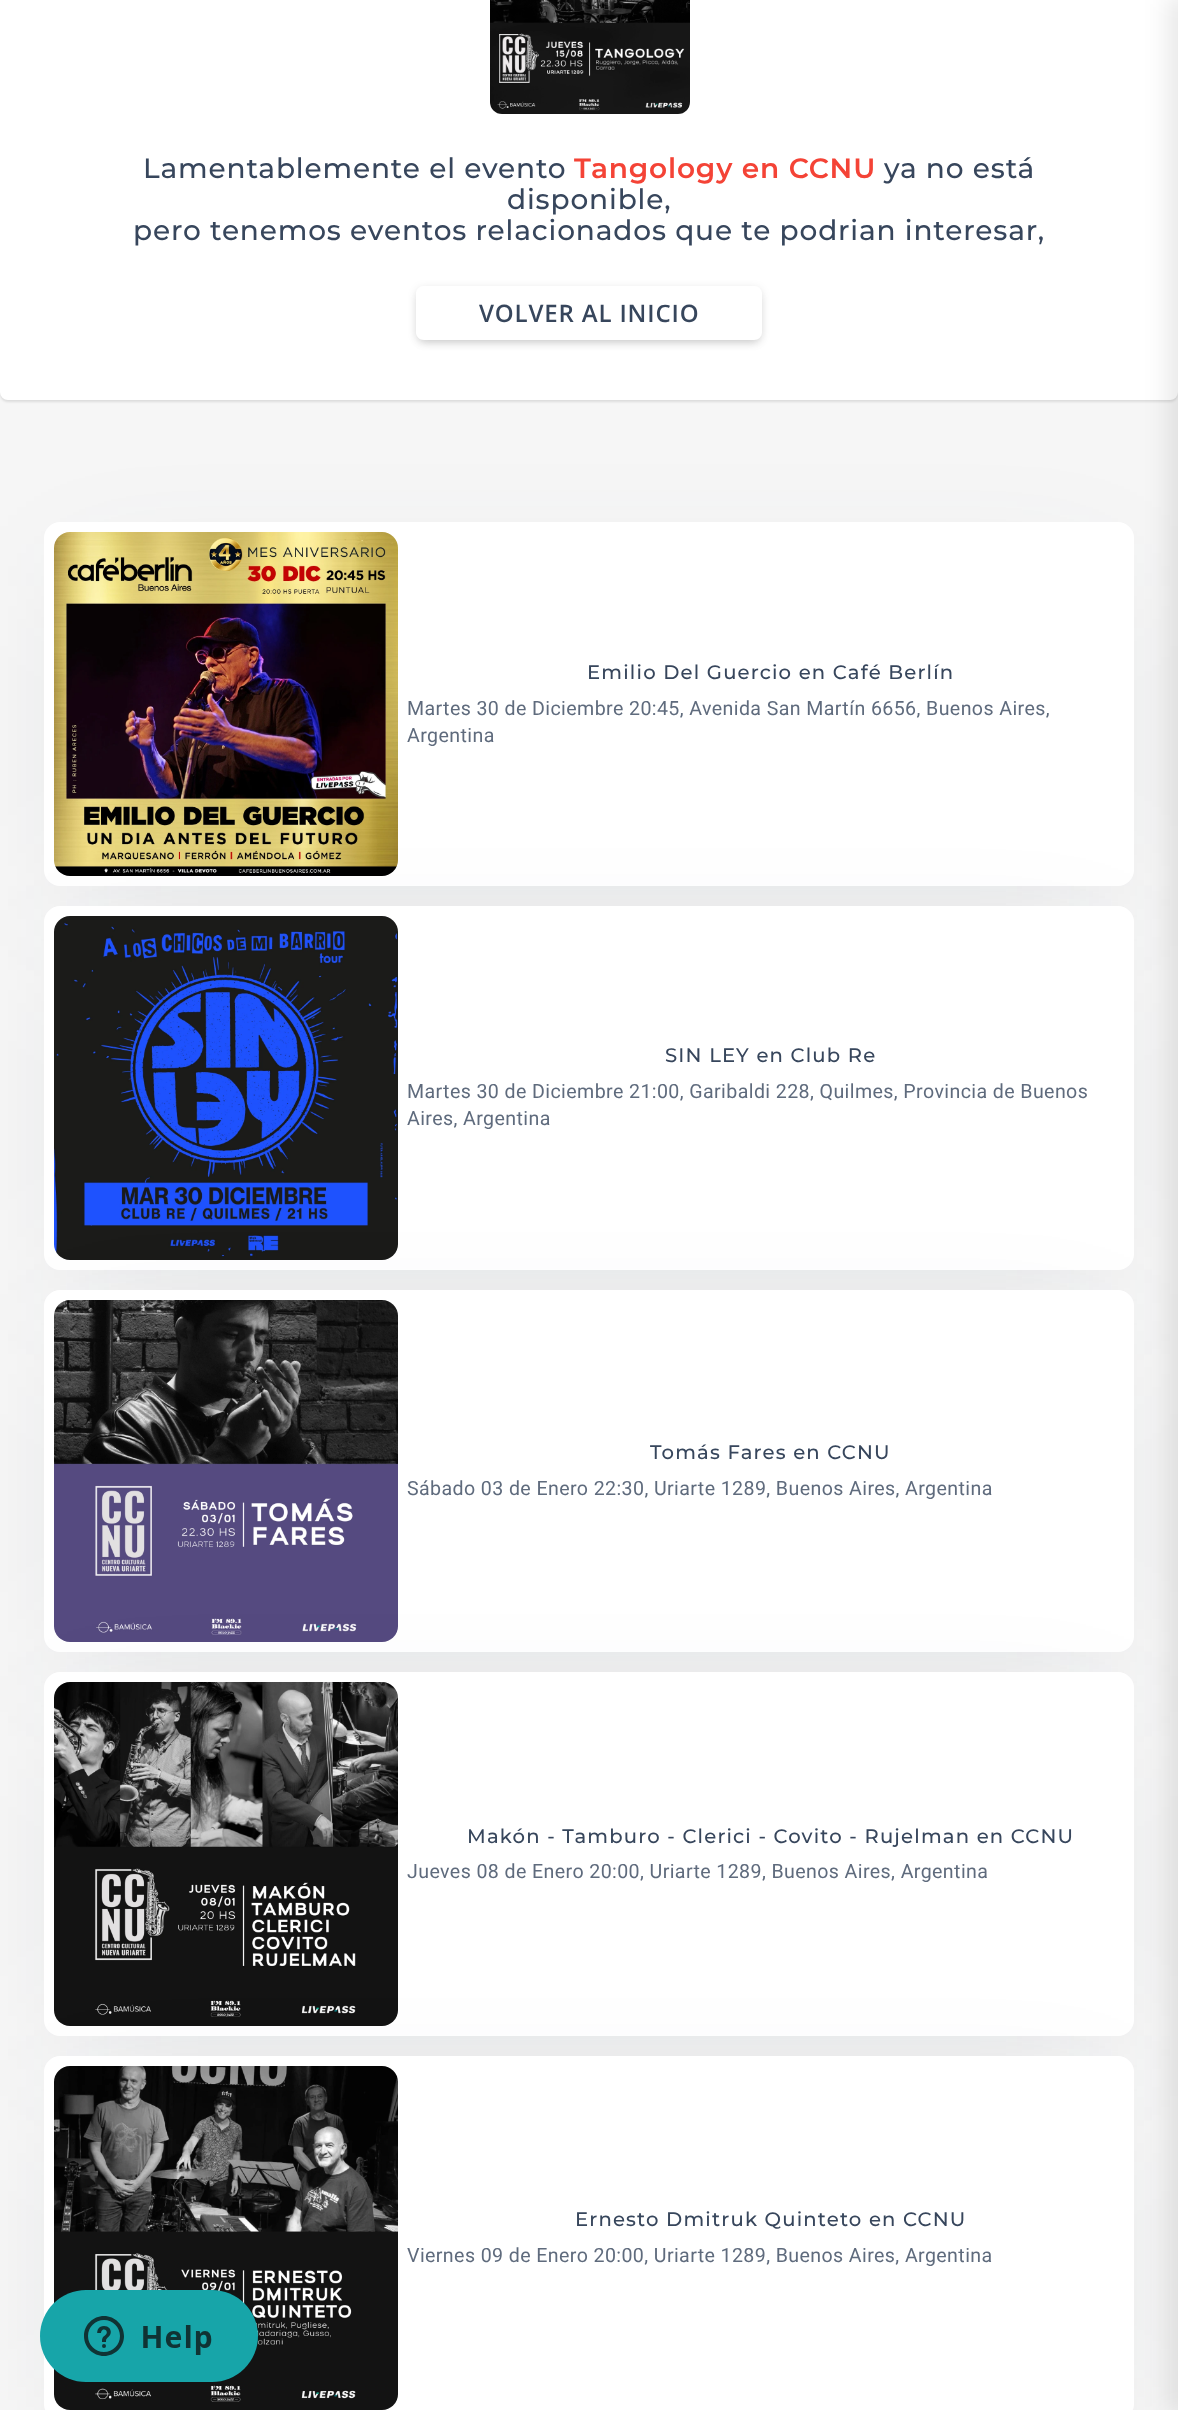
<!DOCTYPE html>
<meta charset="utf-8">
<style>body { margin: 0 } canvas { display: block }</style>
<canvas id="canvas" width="1178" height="2410"></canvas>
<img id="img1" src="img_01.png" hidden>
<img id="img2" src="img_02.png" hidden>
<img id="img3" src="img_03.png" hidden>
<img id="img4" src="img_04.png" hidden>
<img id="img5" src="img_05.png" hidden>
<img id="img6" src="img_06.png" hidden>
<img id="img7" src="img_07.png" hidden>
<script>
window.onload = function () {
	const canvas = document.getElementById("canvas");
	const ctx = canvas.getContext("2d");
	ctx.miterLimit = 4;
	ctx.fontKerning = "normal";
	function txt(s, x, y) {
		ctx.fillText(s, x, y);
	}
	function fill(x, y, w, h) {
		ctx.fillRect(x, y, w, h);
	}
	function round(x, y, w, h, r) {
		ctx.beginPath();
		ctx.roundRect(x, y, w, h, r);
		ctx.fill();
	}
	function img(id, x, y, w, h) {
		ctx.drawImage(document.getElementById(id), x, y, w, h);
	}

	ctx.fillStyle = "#F6F6F6";
	fill(0, 0, 1178, 2410);
	ctx.fillStyle = "rgba(0, 0, 0, 0.1)";
	ctx.filter = "blur(1px)";
	ctx.beginPath();
	ctx.roundRect(0, -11, 1178, 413, 8);
	ctx.fill();
	ctx.filter = "none";
	ctx.fillStyle = "#FFFFFF";
	round(0, -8, 1178, 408, 8);
	img("img1", 490, 0, 200, 114);
	ctx.save();
	ctx.beginPath();
	ctx.moveTo(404, 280);
	ctx.lineTo(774, 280);
	ctx.lineTo(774, 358);
	ctx.lineTo(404, 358);
	ctx.closePath();
	ctx.moveTo(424, 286);
	ctx.lineTo(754, 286);
	ctx.bezierCurveTo(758.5, 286, 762, 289.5, 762, 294);
	ctx.lineTo(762, 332);
	ctx.bezierCurveTo(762, 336.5, 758.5, 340, 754, 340);
	ctx.lineTo(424, 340);
	ctx.bezierCurveTo(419.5, 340, 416, 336.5, 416, 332);
	ctx.lineTo(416, 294);
	ctx.bezierCurveTo(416, 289.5, 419.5, 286, 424, 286);
	ctx.closePath();
	ctx.clip("evenodd");
	ctx.fillStyle = "rgba(0, 0, 0, 0.13)";
	ctx.filter = "blur(5px)";
	ctx.beginPath();
	ctx.roundRect(420, 296, 338, 46, 4);
	ctx.fill();
	ctx.filter = "none";
	ctx.restore();
	ctx.save();
	ctx.beginPath();
	ctx.moveTo(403, 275);
	ctx.lineTo(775, 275);
	ctx.lineTo(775, 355);
	ctx.lineTo(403, 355);
	ctx.closePath();
	ctx.moveTo(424, 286);
	ctx.lineTo(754, 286);
	ctx.bezierCurveTo(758.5, 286, 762, 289.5, 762, 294);
	ctx.lineTo(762, 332);
	ctx.bezierCurveTo(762, 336.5, 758.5, 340, 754, 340);
	ctx.lineTo(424, 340);
	ctx.bezierCurveTo(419.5, 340, 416, 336.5, 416, 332);
	ctx.lineTo(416, 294);
	ctx.bezierCurveTo(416, 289.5, 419.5, 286, 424, 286);
	ctx.closePath();
	ctx.clip("evenodd");
	ctx.fillStyle = "rgba(0, 0, 0, 0.11)";
	ctx.filter = "blur(4px)";
	ctx.beginPath();
	ctx.roundRect(416, 288, 346, 54, 8);
	ctx.fill();
	ctx.filter = "none";
	ctx.restore();
	ctx.fillStyle = "rgba(46, 55, 77, 0.1)";
	ctx.filter = "blur(64px)";
	ctx.beginPath();
	ctx.rect(76, 586, 1026, 300);
	ctx.fill();
	ctx.filter = "none";
	ctx.fillStyle = "#FFFFFF";
	round(44, 522, 1090, 364, 16);
	img("img2", 54, 532, 344, 344);
	ctx.fillStyle = "rgba(46, 55, 77, 0.1)";
	ctx.filter = "blur(64px)";
	ctx.beginPath();
	ctx.rect(76, 970, 1026, 300);
	ctx.fill();
	ctx.filter = "none";
	ctx.fillStyle = "#FFFFFF";
	round(44, 906, 1090, 364, 16);
	img("img3", 54, 916, 344, 344);
	ctx.fillStyle = "rgba(46, 55, 77, 0.1)";
	ctx.filter = "blur(64px)";
	ctx.beginPath();
	ctx.rect(76, 1354, 1026, 298);
	ctx.fill();
	ctx.filter = "none";
	ctx.fillStyle = "#FFFFFF";
	round(44, 1290, 1090, 362, 16);
	img("img4", 54, 1300, 344, 342);
	ctx.fillStyle = "rgba(46, 55, 77, 0.1)";
	ctx.filter = "blur(64px)";
	ctx.beginPath();
	ctx.rect(76, 1736, 1026, 300);
	ctx.fill();
	ctx.filter = "none";
	ctx.fillStyle = "#FFFFFF";
	round(44, 1672, 1090, 364, 16);
	img("img5", 54, 1682, 344, 344);
	ctx.fillStyle = "rgba(46, 55, 77, 0.1)";
	ctx.filter = "blur(64px)";
	ctx.beginPath();
	ctx.rect(76, 2120, 1026, 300);
	ctx.fill();
	ctx.filter = "none";
	ctx.fillStyle = "#FFFFFF";
	round(44, 2056, 1090, 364, 16);
	ctx.fillStyle = "rgba(0, 0, 0, 0.09)";
	ctx.filter = "blur(12px)";
	ctx.beginPath();
	ctx.rect(1168, -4, 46, 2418);
	ctx.fill();
	ctx.filter = "none";
	img("img6", 54, 2066, 344, 344);
	img("img7", 40, 2290, 218, 92);
	ctx.letterSpacing = "0.85px";
	ctx.font = "500 28px Montserrat";
	ctx.fillStyle = "#37465C";
	txt("Lamentablemente el evento", 143, 178);
	ctx.font = "600 28px Montserrat";
	ctx.fillStyle = "#F44336";
	txt("Tangology en CCNU", 574, 178);
	ctx.font = "500 28px Montserrat";
	ctx.fillStyle = "#37465C";
	txt("ya no está", 884, 178);
	txt("disponible,", 507, 209);
	txt("pero tenemos eventos relacionados que te podrian interesar,", 133, 240);
	ctx.font = "600 24px Open Sans";
	txt("VOLVER AL INICIO", 479, 322);
	ctx.letterSpacing = "1.18px";
	ctx.font = "500 19.6px Montserrat";
	txt("Emilio Del Guercio en Café Berlín", 587, 679);
	ctx.letterSpacing = "0.4px";
	ctx.font = "19.6px Roboto";
	ctx.fillStyle = "#5F6B7D";
	txt("Martes 30 de Diciembre 20:45, Avenida San Martín 6656, Buenos Aires,", 407, 715);
	txt("Argentina", 407, 742);
	ctx.letterSpacing = "1.18px";
	ctx.font = "500 19.6px Montserrat";
	ctx.fillStyle = "#37465C";
	txt("SIN LEY en Club Re", 665, 1062);
	ctx.letterSpacing = "0.4px";
	ctx.font = "19.6px Roboto";
	ctx.fillStyle = "#5F6B7D";
	txt("Martes 30 de Diciembre 21:00, Garibaldi 228, Quilmes, Provincia de Buenos", 407, 1098);
	txt("Aires, Argentina", 407, 1125);
	ctx.letterSpacing = "1.18px";
	ctx.font = "500 19.6px Montserrat";
	ctx.fillStyle = "#37465C";
	txt("Tomás Fares en CCNU", 650, 1459);
	ctx.letterSpacing = "0.4px";
	ctx.font = "19.6px Roboto";
	ctx.fillStyle = "#5F6B7D";
	txt("Sábado 03 de Enero 22:30, Uriarte 1289, Buenos Aires, Argentina", 407, 1495);
	ctx.letterSpacing = "1.18px";
	ctx.font = "500 19.6px Montserrat";
	ctx.fillStyle = "#37465C";
	txt("Makón - Tamburo - Clerici - Covito - Rujelman en CCNU", 467, 1843);
	ctx.letterSpacing = "0.4px";
	ctx.font = "19.6px Roboto";
	ctx.fillStyle = "#5F6B7D";
	txt("Jueves 08 de Enero 20:00, Uriarte 1289, Buenos Aires, Argentina", 407, 1878);
	ctx.letterSpacing = "1.18px";
	ctx.font = "500 19.6px Montserrat";
	ctx.fillStyle = "#37465C";
	txt("Ernesto Dmitruk Quinteto en CCNU", 575, 2226);
	ctx.letterSpacing = "0.4px";
	ctx.font = "19.6px Roboto";
	ctx.fillStyle = "#5F6B7D";
	txt("Viernes 09 de Enero 20:00, Uriarte 1289, Buenos Aires, Argentina", 407, 2262);
};
</script>
